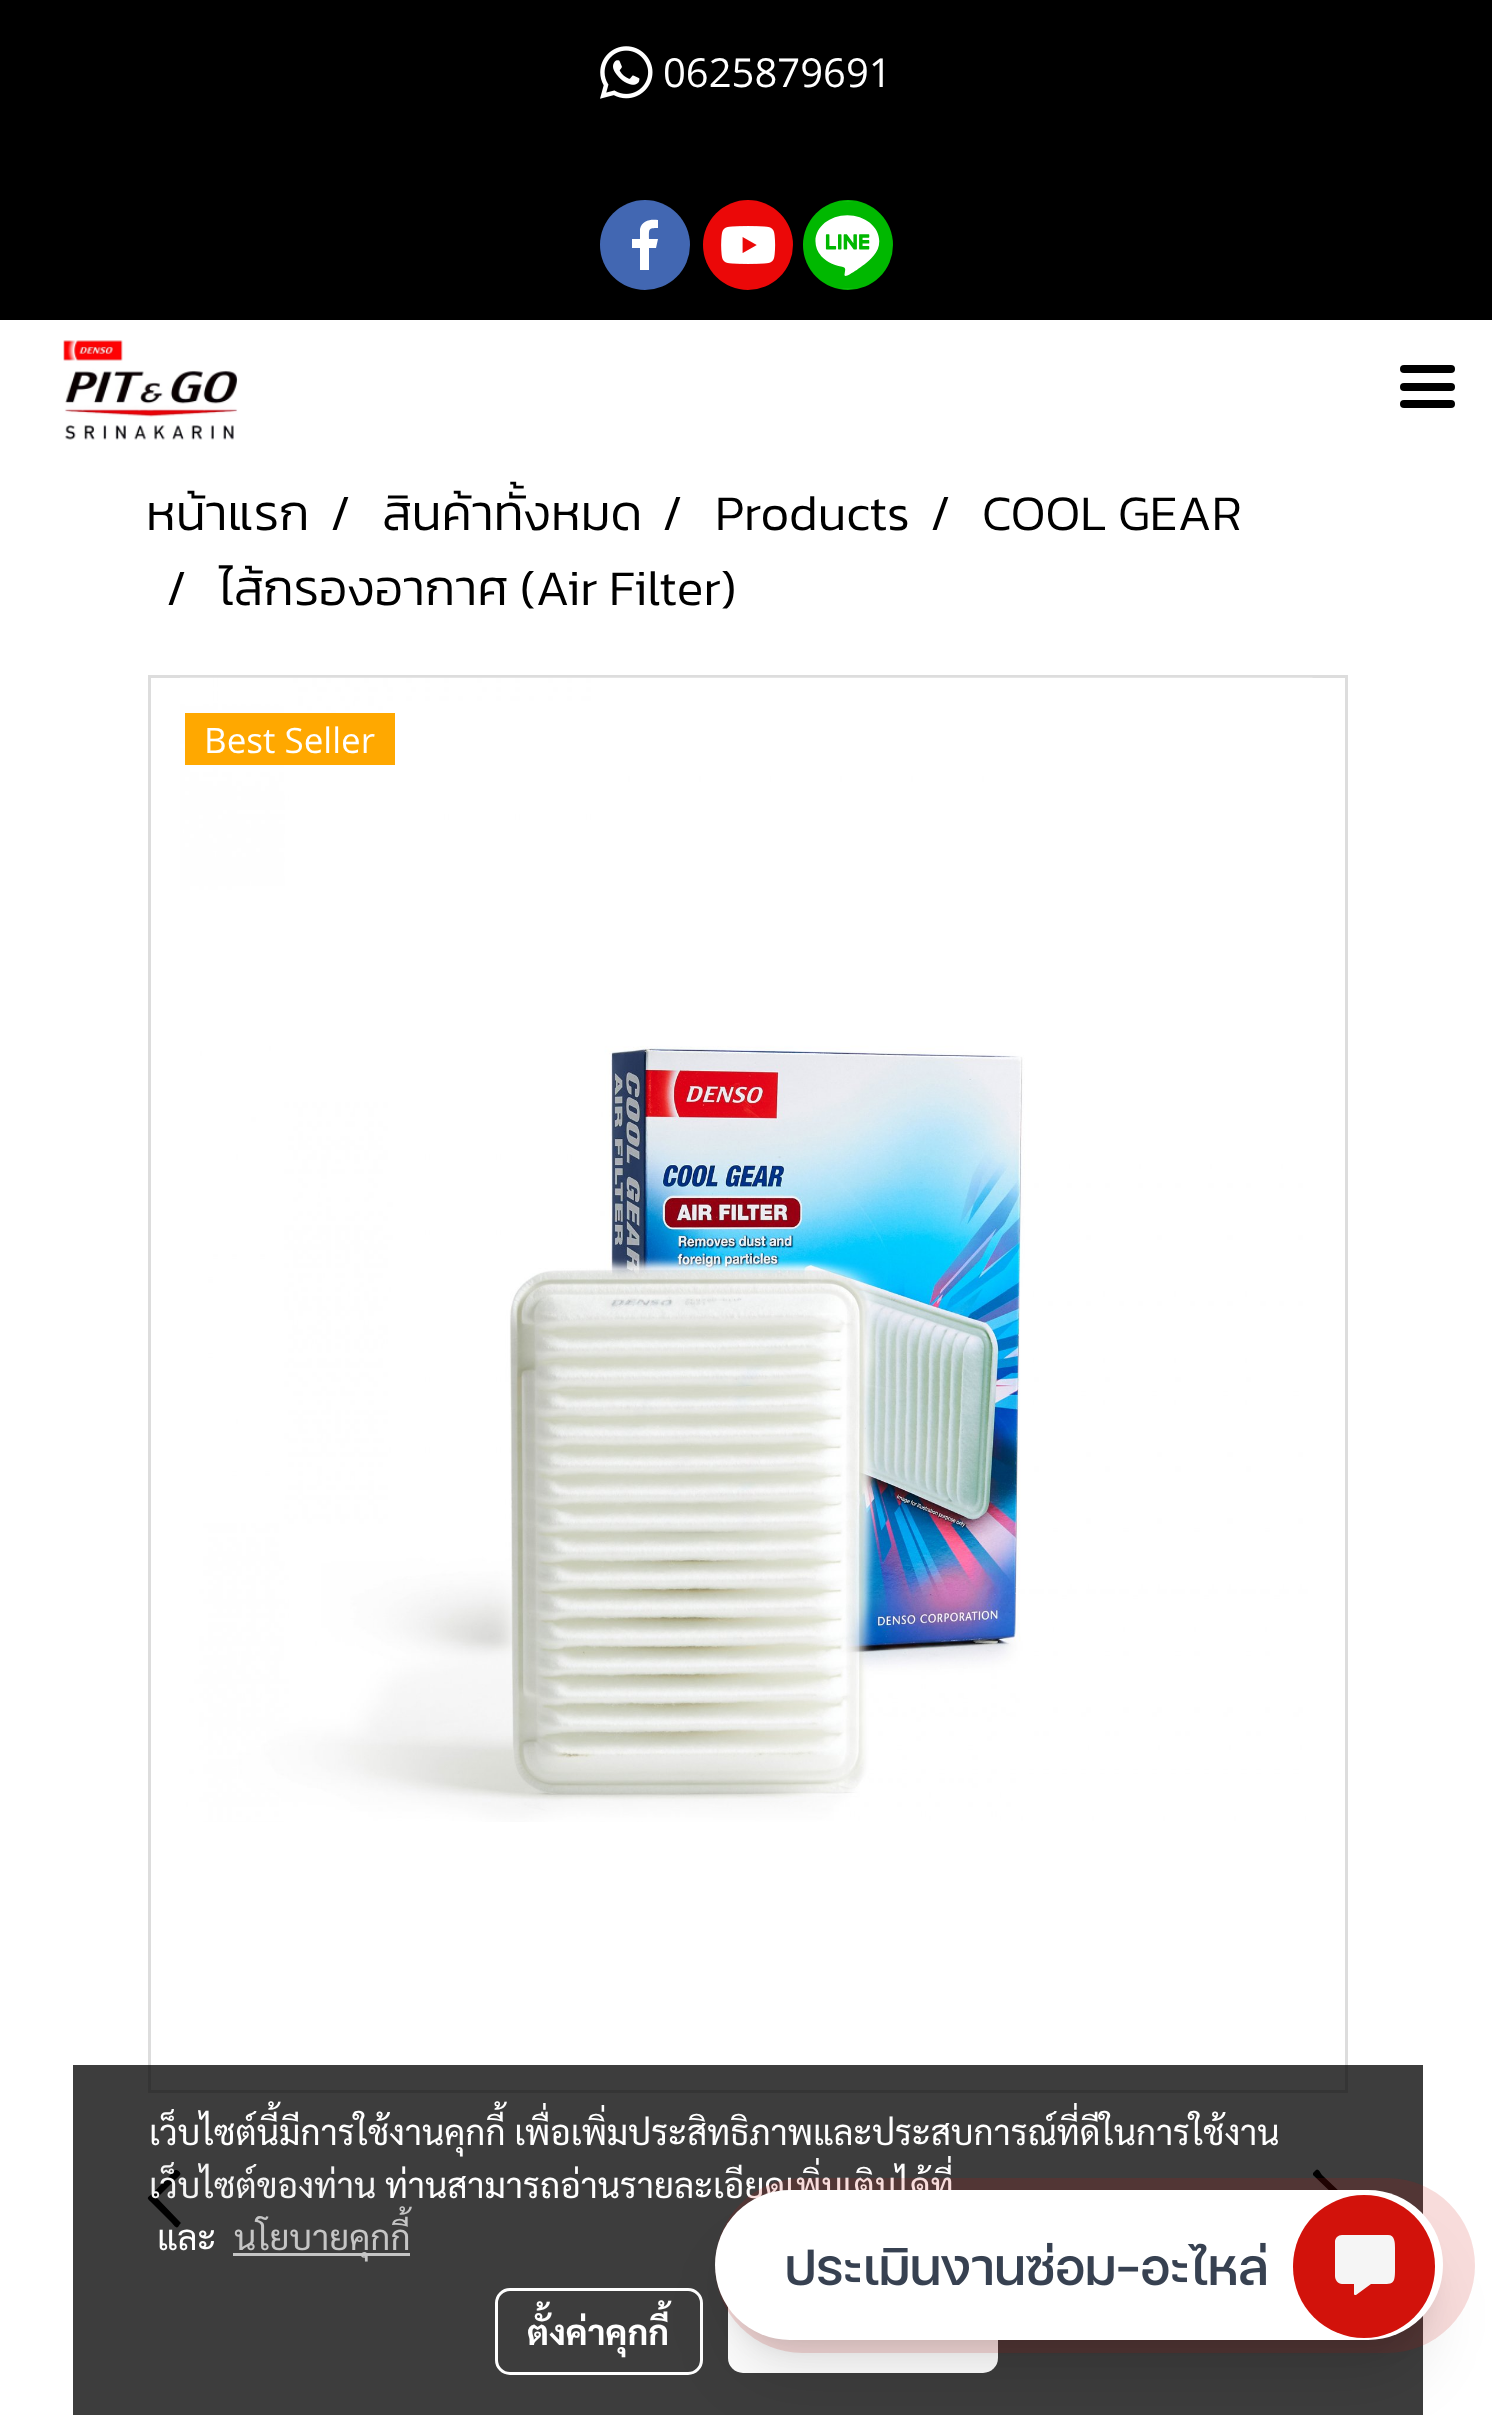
<!DOCTYPE html>
<meta charset="utf-8">
<style>body { margin: 0 } canvas { display: block }</style>
<canvas id="canvas" width="1492" height="2415"></canvas>
<img id="img1" src="img_01.png" hidden>
<img id="img2" src="img_02.png" hidden>
<img id="img3" src="img_03.png" hidden>
<img id="img4" src="img_04.png" hidden>
<img id="img5" src="img_05.png" hidden>
<img id="img6" src="img_06.png" hidden>
<script>
window.onload = function () {
	const canvas = document.getElementById("canvas");
	const ctx = canvas.getContext("2d");
	ctx.miterLimit = 4;
	ctx.fontKerning = "normal";
	function txt(s, x, y) {
		ctx.fillText(s, x, y);
	}
	function fill(x, y, w, h) {
		ctx.fillRect(x, y, w, h);
	}
	function round(x, y, w, h, r) {
		ctx.beginPath();
		ctx.roundRect(x, y, w, h, r);
		ctx.fill();
	}
	function img(id, x, y, w, h) {
		ctx.drawImage(document.getElementById(id), x, y, w, h);
	}

	ctx.fillStyle = "#FFFFFF";
	fill(0, 0, 1492, 2415);
	ctx.fillStyle = "#000000";
	fill(0, 0, 1492, 320);
	img("img1", 600, 46, 53, 53);
	ctx.fillStyle = "#4267B2";
	ctx.beginPath();
	ctx.arc(645, 245, 45, 0, Math.PI * 2);
	ctx.fill();
	ctx.fillStyle = "#FFFFFF";
	ctx.beginPath();
	ctx.moveTo(640, 270);
	ctx.lineTo(640, 248);
	ctx.lineTo(632, 248);
	ctx.lineTo(632, 239);
	ctx.lineTo(640, 239);
	ctx.lineTo(640, 229);
	ctx.bezierCurveTo(642, 220, 651, 219, 658, 220);
	ctx.lineTo(658, 228);
	ctx.bezierCurveTo(648, 228, 649, 229, 649, 239);
	ctx.lineTo(658, 239);
	ctx.lineTo(656, 248);
	ctx.lineTo(649, 248);
	ctx.lineTo(649, 270);
	ctx.fill();
	ctx.fillStyle = "#EB0808";
	ctx.beginPath();
	ctx.arc(748, 245, 45, 0, Math.PI * 2);
	ctx.fill();
	img("img2", 721, 226, 55, 38);
	ctx.fillStyle = "#00B800";
	ctx.beginPath();
	ctx.arc(848, 245, 45, 0, Math.PI * 2);
	ctx.fill();
	img("img3", 815, 201, 65, 88);
	img("img4", 63, 340, 175, 100);
	ctx.fillStyle = "#000000";
	round(1400, 383, 55, 8, 4);
	round(1400, 365, 55, 8, 4);
	round(1400, 400, 55, 8, 4);
	ctx.strokeStyle = "#DDDDDD";
	ctx.lineWidth = 3;
	ctx.strokeRect(149.5, 676.5, 1197, 1415);
	img("img5", 180, 677, 1133, 1145);
	ctx.fillStyle = "#FFA800";
	fill(185, 713, 210, 52);
	ctx.fillStyle = "#000000";
	ctx.beginPath();
	ctx.moveTo(178, 2227);
	ctx.lineTo(180, 2224);
	ctx.bezierCurveTo(181, 2223, 181, 2223, 180, 2222);
	ctx.lineTo(157, 2198);
	ctx.lineTo(176, 2179);
	ctx.bezierCurveTo(180, 2175, 183, 2174, 177, 2170);
	ctx.lineTo(175, 2170);
	ctx.lineTo(153, 2193);
	ctx.bezierCurveTo(146, 2199, 146, 2197, 153, 2204);
	ctx.lineTo(171, 2222);
	ctx.bezierCurveTo(173, 2224, 176, 2229, 178, 2227);
	ctx.closePath();
	ctx.fill();
	ctx.beginPath();
	ctx.moveTo(1316, 2170);
	ctx.lineTo(1313, 2173);
	ctx.bezierCurveTo(1313, 2173, 1313, 2174, 1313, 2175);
	ctx.lineTo(1337, 2198);
	ctx.lineTo(1317, 2218);
	ctx.bezierCurveTo(1313, 2222, 1310, 2223, 1316, 2227);
	ctx.lineTo(1318, 2227);
	ctx.lineTo(1341, 2204);
	ctx.bezierCurveTo(1347, 2197, 1347, 2199, 1341, 2193);
	ctx.lineTo(1322, 2175);
	ctx.bezierCurveTo(1320, 2172, 1318, 2168, 1316, 2170);
	ctx.closePath();
	ctx.fill();
	ctx.fillStyle = "rgba(0, 0, 0, 0.76)";
	fill(73, 2065, 1350, 350);
	ctx.fillStyle = "#C5C5C5";
	fill(233, 2253, 177, 3);
	ctx.beginPath();
	ctx.roundRect(496.5, 2289.5, 205, 84, 13.5);
	ctx.strokeStyle = "#FFFFFF";
	ctx.stroke();
	ctx.fillStyle = "#FFFFFF";
	round(728, 2290, 270, 83, 15);
	ctx.font = "40px Open Sans";
	txt("0625879691", 663, 87);
	ctx.font = "300 50px Kanit";
	ctx.fillStyle = "#000000";
	txt("หน้าแรก", 146, 530);
	txt("/", 330, 530);
	txt("สินค้าทั้งหมด", 382, 530);
	txt("/", 662, 530);
	txt("Products", 715, 530);
	txt("/", 930, 530);
	txt("COOL GEAR", 982, 530);
	txt("/", 166, 605);
	txt("ไส้กรองอากาศ (Air Filter)", 219, 605);
	ctx.font = "35px Open Sans";
	ctx.fillStyle = "#FFFFFF";
	txt("Best Seller", 204, 753);
	ctx.font = "35px Sarabun";
	txt("เว็บไซต์นี้มีการใช้งานคุกกี้ เพื่อเพิ่มประสิทธิภาพและประสบการณ์ที่ดีในการใช้งาน", 149, 2145);
	ctx.fillStyle = "#F5F5F5";
	txt("เว็บไซต์ของท่าน", 149, 2198);
	ctx.fillStyle = "#FFFFFF";
	txt("ท่านสามารถอ่านรายละเอียดเพิ่มเติมได้ที่", 385, 2198);
	txt("และ", 157, 2250);
	ctx.fillStyle = "#C5C5C5";
	txt("นโยบายคุกกี้", 234, 2250);
	ctx.font = "bold 35px Sarabun";
	ctx.fillStyle = "#FFFFFF";
	txt("ตั้งค่าคุกกี้", 527, 2345);
	ctx.fillStyle = "rgba(210, 18, 11, 0.15)";
	round(715, 2178, 760, 175, 87.5);
	ctx.fillStyle = "rgba(0, 0, 0, 0.1)";
	ctx.filter = "blur(31px)";
	ctx.beginPath();
	ctx.roundRect(728, 2253, 702, 125, 62.5);
	ctx.fill();
	ctx.filter = "none";
	ctx.filter = "blur(12.5px)";
	ctx.beginPath();
	ctx.roundRect(730, 2225, 698, 120, 60);
	ctx.fill();
	ctx.filter = "none";
	ctx.fillStyle = "#FFFFFF";
	round(715, 2190, 728, 150, 75);
	ctx.fillStyle = "#D2120B";
	round(1293, 2195, 142, 143, 71);
	ctx.fillStyle = "#F5F5F5";
	ctx.beginPath();
	ctx.moveTo(1388, 2235);
	ctx.lineTo(1342, 2235);
	ctx.bezierCurveTo(1338, 2235, 1335, 2238, 1335, 2242);
	ctx.lineTo(1335, 2276);
	ctx.bezierCurveTo(1335, 2280, 1338, 2284, 1342, 2284);
	ctx.lineTo(1354, 2284);
	ctx.lineTo(1354, 2294);
	ctx.bezierCurveTo(1354, 2295, 1355, 2295, 1356, 2295);
	ctx.lineTo(1371, 2284);
	ctx.bezierCurveTo(1397, 2284, 1395, 2287, 1395, 2259);
	ctx.lineTo(1395, 2248);
	ctx.bezierCurveTo(1395, 2243, 1395, 2235, 1388, 2235);
	ctx.closePath();
	ctx.fill();
	img("img6", 787, 2242, 479, 44);
};
</script>
